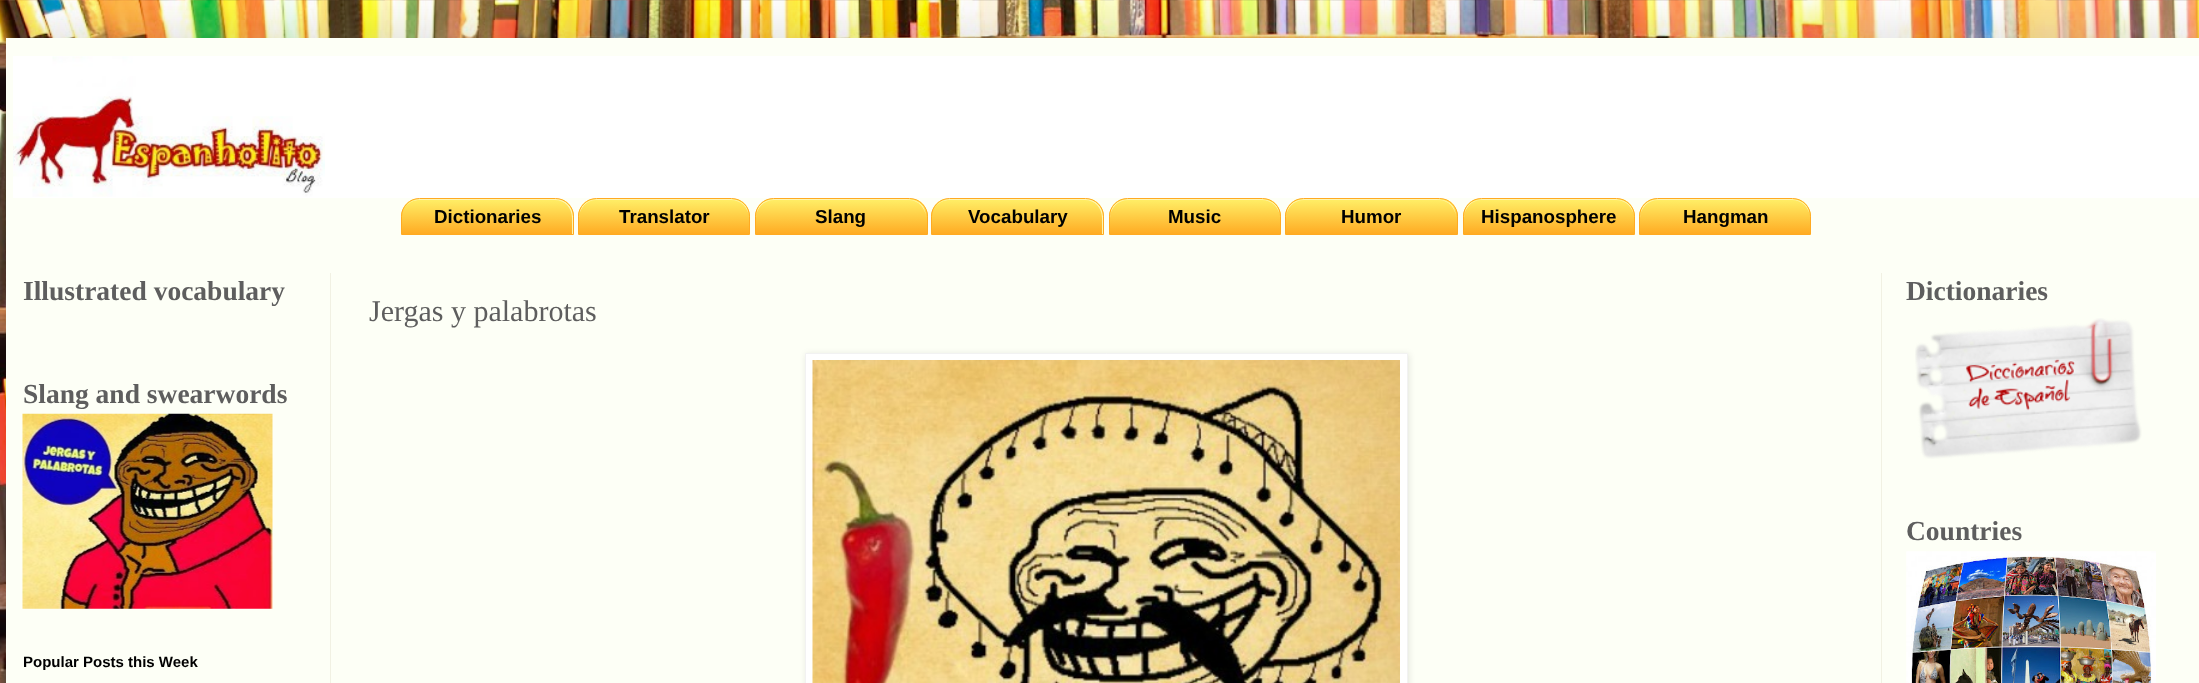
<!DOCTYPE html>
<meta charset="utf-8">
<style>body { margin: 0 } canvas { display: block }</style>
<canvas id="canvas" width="2199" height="683"></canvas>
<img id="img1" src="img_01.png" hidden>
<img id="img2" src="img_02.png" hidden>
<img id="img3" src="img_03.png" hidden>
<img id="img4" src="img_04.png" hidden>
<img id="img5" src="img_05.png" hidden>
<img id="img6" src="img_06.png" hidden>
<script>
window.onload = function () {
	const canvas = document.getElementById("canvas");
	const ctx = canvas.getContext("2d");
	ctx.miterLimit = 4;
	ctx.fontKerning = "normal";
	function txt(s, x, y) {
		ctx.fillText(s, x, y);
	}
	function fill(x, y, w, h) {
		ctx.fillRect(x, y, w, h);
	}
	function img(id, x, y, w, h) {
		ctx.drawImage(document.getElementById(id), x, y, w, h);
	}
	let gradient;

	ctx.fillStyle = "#FFFFFF";
	fill(0, 0, 2199, 683);
	img("img1", 0, 0, 2199, 683);
	ctx.fillStyle = "rgba(0, 0, 0, 0.15)";
	ctx.filter = "blur(25px)";
	ctx.beginPath();
	ctx.rect(6, 38, 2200, 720);
	ctx.fill();
	ctx.filter = "none";
	ctx.fillStyle = "#FDFFF6";
	fill(6, 38, 2193, 645);
	ctx.fillStyle = "#FFFFFF";
	fill(13, 56, 2186, 142);
	img("img2", 13, 56, 312, 141);
	ctx.save();
	ctx.beginPath();
	ctx.roundRect(401, 198, 173, 37, [18.5, 18.5, 0, 0]);
	ctx.clip();
	gradient = ctx.createLinearGradient(403, 199, 403, 234);
	gradient.addColorStop(0.05, "#FFEC64");
	gradient.addColorStop(1, "#FFAB23");
	ctx.fillStyle = gradient;
	fill(401, 199, 173, 35);
	ctx.restore();
	ctx.fillStyle = "#FFF6AF";
	ctx.beginPath();
	ctx.moveTo(420, 200);
	ctx.lineTo(555, 200);
	ctx.bezierCurveTo(565, 200, 572, 208, 572, 218);
	ctx.lineTo(572, 234);
	ctx.lineTo(573, 234);
	ctx.lineTo(573, 216);
	ctx.bezierCurveTo(573, 207, 565, 199, 556, 199);
	ctx.lineTo(420, 199);
	ctx.bezierCurveTo(415, 199, 409, 202, 406, 206);
	ctx.bezierCurveTo(410, 202, 414, 200, 420, 200);
	ctx.closePath();
	ctx.fill();
	ctx.beginPath();
	ctx.roundRect(401.5, 198.5, 172, 36, [18, 18, 0, 0]);
	ctx.strokeStyle = "#FFAA22";
	ctx.stroke();
	ctx.save();
	ctx.beginPath();
	ctx.roundRect(578, 198, 172, 37, [18.5, 18.5, 0, 0]);
	ctx.clip();
	gradient = ctx.createLinearGradient(579, 199, 579, 234);
	gradient.addColorStop(0.05, "#FFEC64");
	gradient.addColorStop(1, "#FFAB23");
	ctx.fillStyle = gradient;
	fill(578, 199, 172, 35);
	ctx.restore();
	ctx.beginPath();
	ctx.moveTo(596, 200);
	ctx.lineTo(731, 200);
	ctx.bezierCurveTo(741, 200, 749, 208, 749, 218);
	ctx.bezierCurveTo(749, 195, 725, 199, 709, 199);
	ctx.lineTo(619, 199);
	ctx.bezierCurveTo(603, 199, 579, 195, 579, 218);
	ctx.bezierCurveTo(579, 208, 587, 200, 596, 200);
	ctx.closePath();
	ctx.fill();
	ctx.beginPath();
	ctx.roundRect(578.5, 198.5, 171, 36, [18, 18, 0, 0]);
	ctx.stroke();
	ctx.save();
	ctx.beginPath();
	ctx.roundRect(755, 198, 173, 37, [18.5, 18.5, 0, 0]);
	ctx.clip();
	gradient = ctx.createLinearGradient(756, 199, 756, 234);
	gradient.addColorStop(0.05, "#FFEC64");
	gradient.addColorStop(1, "#FFAB23");
	ctx.fillStyle = gradient;
	fill(755, 199, 173, 35);
	ctx.restore();
	ctx.beginPath();
	ctx.moveTo(774, 200);
	ctx.lineTo(909, 200);
	ctx.bezierCurveTo(918, 200, 926, 208, 926, 218);
	ctx.bezierCurveTo(926, 195, 902, 199, 886, 199);
	ctx.lineTo(796, 199);
	ctx.bezierCurveTo(780, 199, 756, 195, 756, 218);
	ctx.bezierCurveTo(756, 208, 764, 200, 774, 200);
	ctx.closePath();
	ctx.fill();
	ctx.beginPath();
	ctx.roundRect(755.5, 198.5, 172, 36, [18, 18, 0, 0]);
	ctx.stroke();
	ctx.save();
	ctx.beginPath();
	ctx.roundRect(931, 198, 173, 37, [18.5, 18.5, 0, 0]);
	ctx.clip();
	gradient = ctx.createLinearGradient(933, 199, 933, 234);
	gradient.addColorStop(0.05, "#FFEC64");
	gradient.addColorStop(1, "#FFAB23");
	ctx.fillStyle = gradient;
	fill(931, 199, 173, 35);
	ctx.restore();
	ctx.beginPath();
	ctx.moveTo(950, 200);
	ctx.lineTo(1085, 200);
	ctx.bezierCurveTo(1095, 200, 1102, 208, 1102, 218);
	ctx.lineTo(1102, 234);
	ctx.lineTo(1103, 234);
	ctx.lineTo(1103, 216);
	ctx.bezierCurveTo(1103, 207, 1095, 199, 1086, 199);
	ctx.lineTo(950, 199);
	ctx.bezierCurveTo(945, 199, 939, 202, 936, 206);
	ctx.bezierCurveTo(940, 202, 944, 200, 950, 200);
	ctx.closePath();
	ctx.fill();
	ctx.beginPath();
	ctx.roundRect(931.5, 198.5, 172, 36, [18, 18, 0, 0]);
	ctx.stroke();
	ctx.save();
	ctx.beginPath();
	ctx.roundRect(1109, 198, 172, 37, [18.5, 18.5, 0, 0]);
	ctx.clip();
	gradient = ctx.createLinearGradient(1110, 199, 1110, 234);
	gradient.addColorStop(0.05, "#FFEC64");
	gradient.addColorStop(1, "#FFAB23");
	ctx.fillStyle = gradient;
	fill(1109, 199, 172, 35);
	ctx.restore();
	ctx.beginPath();
	ctx.moveTo(1128, 200);
	ctx.lineTo(1262, 200);
	ctx.bezierCurveTo(1272, 200, 1280, 208, 1280, 218);
	ctx.bezierCurveTo(1280, 195, 1256, 199, 1240, 199);
	ctx.lineTo(1150, 199);
	ctx.bezierCurveTo(1134, 199, 1110, 195, 1110, 218);
	ctx.bezierCurveTo(1110, 208, 1118, 200, 1128, 200);
	ctx.closePath();
	ctx.fill();
	ctx.beginPath();
	ctx.roundRect(1109.5, 198.5, 171, 36, [18, 18, 0, 0]);
	ctx.stroke();
	ctx.save();
	ctx.beginPath();
	ctx.roundRect(1285, 198, 173, 37, [18.5, 18.5, 0, 0]);
	ctx.clip();
	gradient = ctx.createLinearGradient(1286, 199, 1286, 234);
	gradient.addColorStop(0.05, "#FFEC64");
	gradient.addColorStop(1, "#FFAB23");
	ctx.fillStyle = gradient;
	fill(1285, 199, 173, 35);
	ctx.restore();
	ctx.beginPath();
	ctx.moveTo(1304, 200);
	ctx.lineTo(1439, 200);
	ctx.bezierCurveTo(1448, 200, 1456, 208, 1456, 218);
	ctx.bezierCurveTo(1456, 195, 1432, 199, 1416, 199);
	ctx.lineTo(1326, 199);
	ctx.bezierCurveTo(1310, 199, 1286, 195, 1286, 218);
	ctx.bezierCurveTo(1286, 208, 1294, 200, 1304, 200);
	ctx.closePath();
	ctx.fill();
	ctx.beginPath();
	ctx.roundRect(1285.5, 198.5, 172, 36, [18, 18, 0, 0]);
	ctx.stroke();
	ctx.save();
	ctx.beginPath();
	ctx.roundRect(1463, 198, 172, 37, [18.5, 18.5, 0, 0]);
	ctx.clip();
	gradient = ctx.createLinearGradient(1464, 199, 1464, 234);
	gradient.addColorStop(0.05, "#FFEC64");
	gradient.addColorStop(1, "#FFAB23");
	ctx.fillStyle = gradient;
	fill(1463, 199, 172, 35);
	ctx.restore();
	ctx.beginPath();
	ctx.moveTo(1481, 200);
	ctx.lineTo(1616, 200);
	ctx.bezierCurveTo(1626, 200, 1634, 208, 1634, 218);
	ctx.bezierCurveTo(1634, 195, 1610, 199, 1594, 199);
	ctx.lineTo(1504, 199);
	ctx.bezierCurveTo(1488, 199, 1464, 195, 1464, 218);
	ctx.bezierCurveTo(1464, 208, 1472, 200, 1481, 200);
	ctx.closePath();
	ctx.fill();
	ctx.beginPath();
	ctx.roundRect(1463.5, 198.5, 171, 36, [18, 18, 0, 0]);
	ctx.stroke();
	ctx.save();
	ctx.beginPath();
	ctx.roundRect(1639, 198, 172, 37, [18.5, 18.5, 0, 0]);
	ctx.clip();
	gradient = ctx.createLinearGradient(1640, 199, 1640, 234);
	gradient.addColorStop(0.05, "#FFEC64");
	gradient.addColorStop(1, "#FFAB23");
	ctx.fillStyle = gradient;
	fill(1639, 199, 172, 35);
	ctx.restore();
	ctx.beginPath();
	ctx.moveTo(1658, 200);
	ctx.lineTo(1792, 200);
	ctx.bezierCurveTo(1802, 200, 1810, 208, 1810, 218);
	ctx.bezierCurveTo(1810, 195, 1786, 199, 1770, 199);
	ctx.lineTo(1680, 199);
	ctx.bezierCurveTo(1664, 199, 1640, 195, 1640, 218);
	ctx.bezierCurveTo(1640, 208, 1648, 200, 1658, 200);
	ctx.closePath();
	ctx.fill();
	ctx.beginPath();
	ctx.roundRect(1639.5, 198.5, 171, 36, [18, 18, 0, 0]);
	ctx.stroke();
	ctx.fillStyle = "#F1F1E3";
	fill(330, 273, 1, 410);
	fill(1881, 273, 1, 410);
	img("img3", 22, 413, 251, 196);
	ctx.fillStyle = "rgba(0, 0, 0, 0.1)";
	ctx.filter = "blur(3px)";
	ctx.beginPath();
	ctx.rect(806, 354, 603, 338);
	ctx.fill();
	ctx.filter = "none";
	ctx.fillStyle = "#FFFFFF";
	ctx.beginPath();
	ctx.rect(805.5, 353.5, 602, 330);
	ctx.fill();
	ctx.strokeStyle = "#F2F2F2";
	ctx.stroke();
	img("img4", 812, 360, 588, 323);
	img("img5", 1915, 318, 227, 141);
	img("img6", 1906, 551, 250, 132);
	ctx.font = "bold 18.75px Liberation Sans";
	ctx.fillStyle = "#000000";
	txt("Dictionaries", 434, 223);
	txt("Translator", 619, 223);
	txt("Slang", 815, 223);
	txt("Vocabulary", 968, 223);
	txt("Music", 1168, 223);
	txt("Humor", 1341, 223);
	txt("Hispanosphere", 1481, 223);
	txt("Hangman", 1683, 223);
	ctx.font = "bold 27.5px Liberation Serif";
	ctx.fillStyle = "#5E5E5E";
	txt("Illustrated vocabulary", 23, 300);
	txt("Slang and swearwords", 23, 403);
	ctx.font = "bold 15px Liberation Sans";
	ctx.fillStyle = "#000000";
	txt("Popular Posts this Week", 23, 667);
	ctx.font = "30px Liberation Serif";
	ctx.fillStyle = "#5E5E5E";
	txt("Jergas y palabrotas", 369, 321);
	ctx.font = "bold 27.5px Liberation Serif";
	txt("Dictionaries", 1906, 300);
	txt("Countries", 1906, 540);
};
</script>
